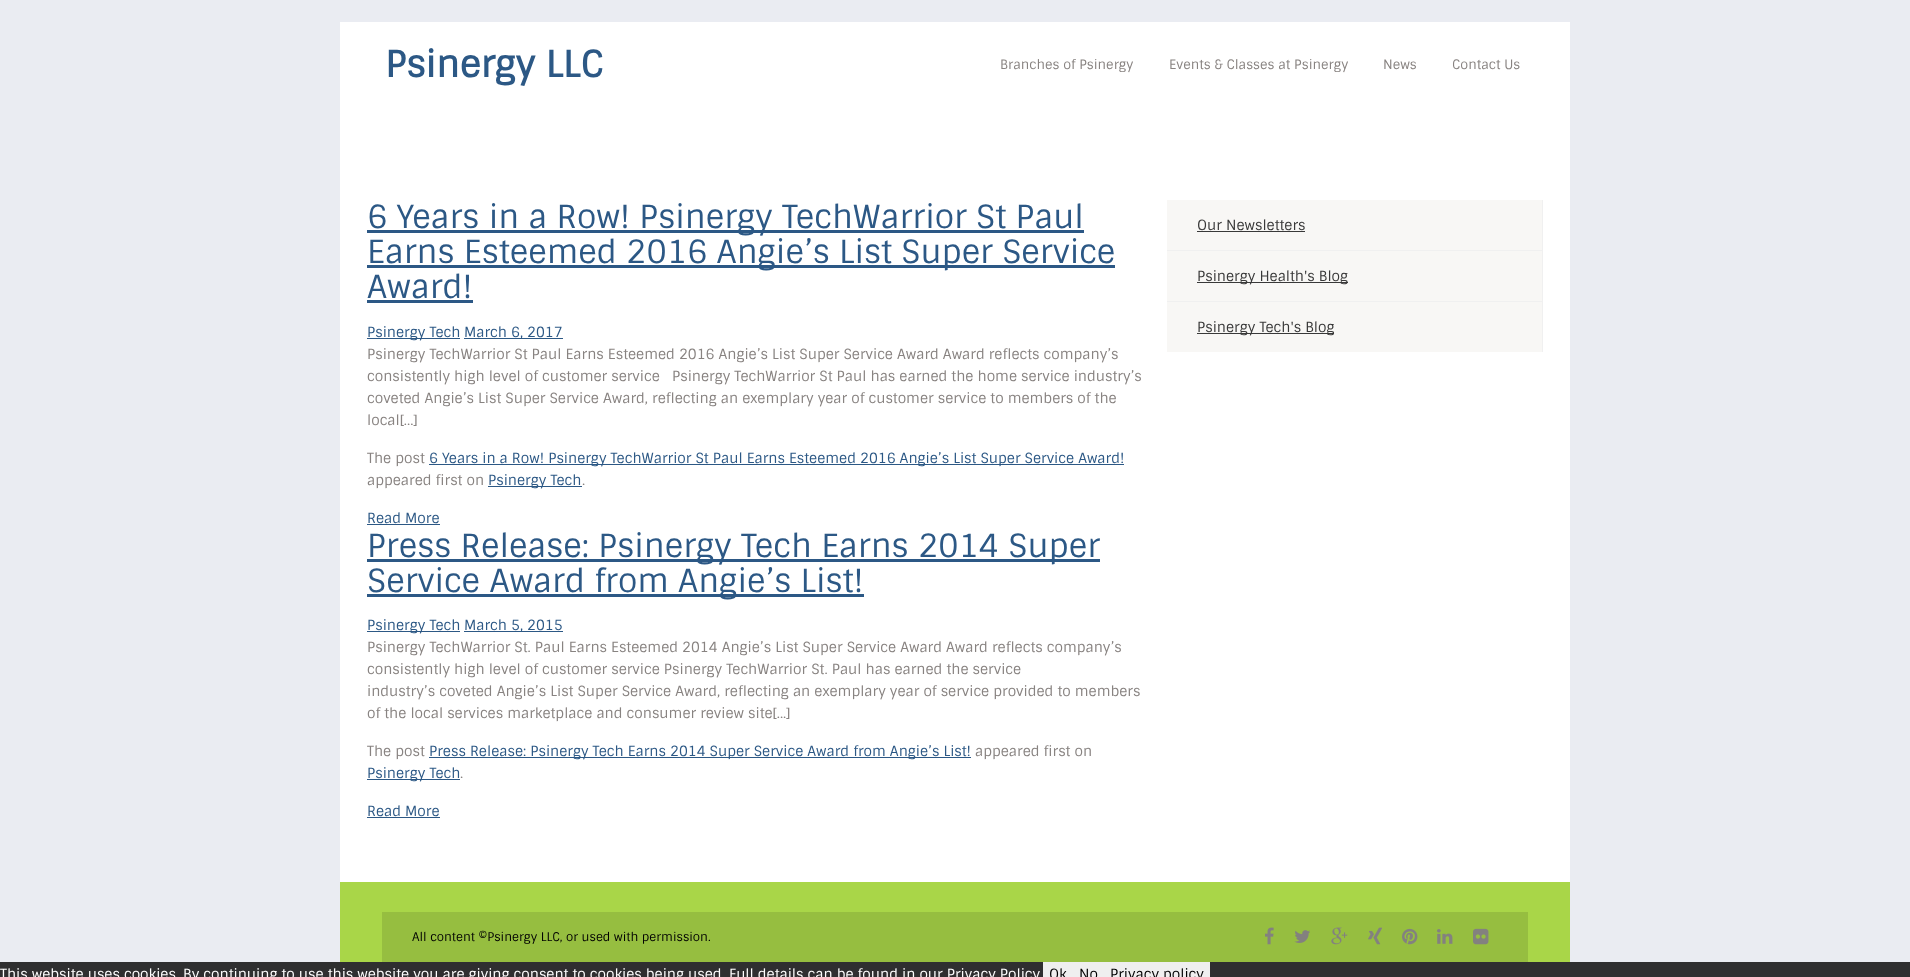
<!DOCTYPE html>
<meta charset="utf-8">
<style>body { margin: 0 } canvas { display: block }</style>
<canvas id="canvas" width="1910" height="977"></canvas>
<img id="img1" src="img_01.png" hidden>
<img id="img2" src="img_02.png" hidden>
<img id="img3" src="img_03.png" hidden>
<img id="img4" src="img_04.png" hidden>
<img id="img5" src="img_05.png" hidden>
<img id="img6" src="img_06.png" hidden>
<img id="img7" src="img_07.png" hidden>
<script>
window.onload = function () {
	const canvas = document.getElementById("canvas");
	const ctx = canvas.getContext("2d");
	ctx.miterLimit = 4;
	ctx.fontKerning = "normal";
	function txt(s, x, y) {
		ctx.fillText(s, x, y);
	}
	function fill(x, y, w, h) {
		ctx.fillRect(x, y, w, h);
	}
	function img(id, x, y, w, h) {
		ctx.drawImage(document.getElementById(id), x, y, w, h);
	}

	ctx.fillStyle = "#EAECF2";
	fill(0, 0, 1910, 977);
	ctx.fillStyle = "#FFFFFF";
	fill(340, 22, 1230, 860);
	ctx.fillStyle = "#2C5885";
	fill(367, 230, 717, 3);
	fill(367, 265, 748, 3);
	fill(367, 300, 106, 3);
	fill(367, 338, 93, 1);
	fill(464, 338, 99, 1);
	fill(429, 464, 695, 1);
	fill(488, 486, 94, 1);
	fill(367, 524, 73, 1);
	fill(367, 559, 733, 3);
	fill(367, 594, 497, 3);
	fill(367, 631, 93, 1);
	fill(464, 631, 99, 1);
	fill(429, 757, 542, 1);
	fill(367, 779, 93, 1);
	fill(367, 817, 73, 1);
	ctx.fillStyle = "#F8F7F5";
	fill(1167, 200, 375, 152);
	ctx.fillStyle = "#F0F0F0";
	fill(1542, 200, 1, 152);
	fill(1167, 250, 376, 1);
	ctx.fillStyle = "#393939";
	fill(1197, 231, 108, 1);
	ctx.fillStyle = "#F0F0F0";
	fill(1167, 301, 376, 1);
	ctx.fillStyle = "#393939";
	fill(1197, 282, 151, 1);
	fill(1197, 333, 137, 1);
	ctx.fillStyle = "#A9D648";
	fill(340, 882, 1230, 80);
	ctx.fillStyle = "#96BE40";
	fill(382, 912, 1146, 50);
	img("img1", 1265, 927, 9, 18);
	img("img2", 1294, 930, 16, 13);
	img("img3", 1331, 927, 17, 18);
	img("img4", 1368, 927, 14, 18);
	img("img5", 1402, 928, 16, 17);
	img("img6", 1437, 929, 16, 15);
	img("img7", 1473, 928, 16, 17);
	ctx.fillStyle = "#2F2F30";
	fill(0, 962, 1910, 15);
	ctx.fillStyle = "#EFEFEF";
	fill(1043, 962, 167, 15);
	ctx.font = "bold 36px Sintony";
	ctx.fillStyle = "#2C5885";
	txt("Psinergy LLC", 385, 77);
	ctx.font = "13px Sintony";
	ctx.fillStyle = "#888381";
	txt("Branches of Psinergy", 1000, 69);
	txt("Events & Classes at Psinergy", 1169, 69);
	txt("News", 1383, 69);
	txt("Contact Us", 1452, 69);
	ctx.font = "32px Sintony";
	ctx.fillStyle = "#2C5885";
	txt("6 Years in a Row! Psinergy TechWarrior St Paul", 367, 228);
	txt("Earns Esteemed 2016 Angie’s List Super Service", 367, 263);
	txt("Award!", 367, 298);
	ctx.font = "14px Sintony";
	txt("Psinergy Tech", 367, 337);
	txt("March 6, 2017", 464, 337);
	ctx.fillStyle = "#888381";
	txt("Psinergy TechWarrior St Paul Earns Esteemed 2016 Angie’s List Super Service Award Award reflects company’s", 367, 359);
	txt("consistently high level of customer service   Psinergy TechWarrior St Paul has earned the home service industry’s", 367, 381);
	txt("coveted Angie’s List Super Service Award, reflecting an exemplary year of customer service to members of the", 367, 403);
	txt("local[...]", 367, 425);
	txt("The post", 367, 463);
	ctx.fillStyle = "#2C5885";
	txt("6 Years in a Row! Psinergy TechWarrior St Paul Earns Esteemed 2016 Angie’s List Super Service Award!", 429, 463);
	ctx.fillStyle = "#888381";
	txt("appeared first on", 367, 485);
	ctx.fillStyle = "#2C5885";
	txt("Psinergy Tech", 488, 485);
	ctx.fillStyle = "#888381";
	txt(".", 582, 485);
	ctx.fillStyle = "#2C5885";
	txt("Read More", 367, 523);
	ctx.font = "32px Sintony";
	txt("Press Release: Psinergy Tech Earns 2014 Super", 367, 557);
	txt("Service Award from Angie’s List!", 367, 592);
	ctx.font = "14px Sintony";
	txt("Psinergy Tech", 367, 630);
	txt("March 5, 2015", 464, 630);
	ctx.fillStyle = "#888381";
	txt("Psinergy TechWarrior St. Paul Earns Esteemed 2014 Angie’s List Super Service Award Award reflects company’s", 367, 652);
	txt("consistently high level of customer service Psinergy TechWarrior St. Paul has earned the service", 367, 674);
	txt("industry’s coveted Angie’s List Super Service Award, reflecting an exemplary year of service provided to members", 367, 696);
	txt("of the local services marketplace and consumer review site[...]", 367, 718);
	txt("The post", 367, 756);
	ctx.fillStyle = "#2C5885";
	txt("Press Release: Psinergy Tech Earns 2014 Super Service Award from Angie’s List!", 429, 756);
	ctx.fillStyle = "#888381";
	txt("appeared first on", 975, 756);
	ctx.fillStyle = "#2C5885";
	txt("Psinergy Tech", 367, 778);
	ctx.fillStyle = "#888381";
	txt(".", 460, 778);
	ctx.fillStyle = "#2C5885";
	txt("Read More", 367, 816);
	ctx.fillStyle = "#393939";
	txt("Our Newsletters", 1197, 230);
	txt("Psinergy Health's Blog", 1197, 281);
	txt("Psinergy Tech's Blog", 1197, 332);
	ctx.font = "12px Sintony";
	ctx.fillStyle = "#000000";
	txt("All content ©Psinergy LLC, or used with permission.", 412, 941);
	ctx.font = "14px Sintony";
	ctx.fillStyle = "#FFFFFF";
	txt("This website uses cookies. By continuing to use this website you are giving consent to cookies being used. Full details can be found in our Privacy Policy", 0, 979);
	ctx.fillStyle = "#000000";
	txt("Ok", 1049, 979);
	txt("No", 1079, 979);
	txt("Privacy policy", 1110, 979);
};
</script>
